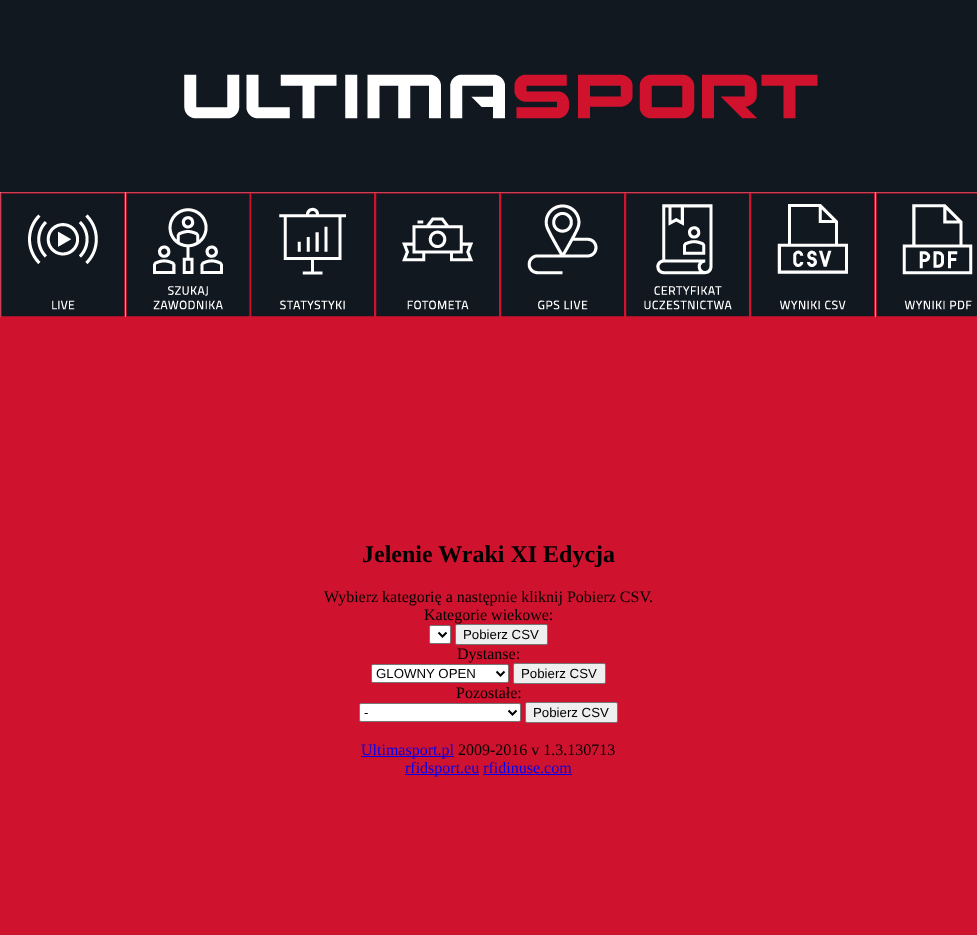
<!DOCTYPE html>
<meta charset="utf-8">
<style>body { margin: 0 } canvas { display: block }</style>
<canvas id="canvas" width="977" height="935"></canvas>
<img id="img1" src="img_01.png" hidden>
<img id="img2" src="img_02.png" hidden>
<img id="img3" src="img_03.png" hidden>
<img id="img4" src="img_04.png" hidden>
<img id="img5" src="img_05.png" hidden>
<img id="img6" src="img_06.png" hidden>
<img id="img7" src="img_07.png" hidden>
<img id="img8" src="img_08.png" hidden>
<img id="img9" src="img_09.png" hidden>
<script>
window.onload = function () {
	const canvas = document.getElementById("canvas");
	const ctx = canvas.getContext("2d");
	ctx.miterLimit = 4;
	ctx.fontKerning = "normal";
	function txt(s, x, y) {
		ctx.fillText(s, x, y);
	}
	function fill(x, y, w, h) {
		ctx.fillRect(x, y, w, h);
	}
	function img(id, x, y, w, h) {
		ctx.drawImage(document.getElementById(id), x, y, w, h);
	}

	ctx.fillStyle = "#CF122D";
	fill(0, 0, 977, 935);
	img("img1", 0, 0, 977, 192);
	img("img2", 0, 192, 125, 125);
	img("img3", 125, 192, 125, 125);
	img("img4", 250, 192, 125, 125);
	img("img5", 375, 192, 125, 125);
	img("img6", 500, 192, 125, 125);
	img("img7", 625, 192, 125, 125);
	img("img8", 750, 192, 125, 125);
	img("img9", 875, 192, 102, 125);
	ctx.fillStyle = "#FFFFFF";
	ctx.beginPath();
	ctx.roundRect(429.5, 625.5, 21, 18, 1.5);
	ctx.fill();
	ctx.strokeStyle = "#767676";
	ctx.stroke();
	ctx.beginPath();
	ctx.moveTo(438.5, 632.5);
	ctx.lineTo(442.5, 636.5);
	ctx.lineTo(446.5, 632.5);
	ctx.strokeStyle = "#000000";
	ctx.lineWidth = 2;
	ctx.stroke();
	ctx.fillStyle = "#EFEFEF";
	ctx.beginPath();
	ctx.roundRect(455.5, 624.5, 92, 20, 1.5);
	ctx.fill();
	ctx.strokeStyle = "#767676";
	ctx.lineWidth = 1;
	ctx.stroke();
	ctx.fillStyle = "#FFFFFF";
	ctx.beginPath();
	ctx.roundRect(371.5, 664.5, 137, 18, 1.5);
	ctx.fill();
	ctx.stroke();
	ctx.beginPath();
	ctx.moveTo(496.5, 671.5);
	ctx.lineTo(500.5, 675.5);
	ctx.lineTo(504.5, 671.5);
	ctx.strokeStyle = "#000000";
	ctx.lineWidth = 2;
	ctx.stroke();
	ctx.fillStyle = "#EFEFEF";
	ctx.beginPath();
	ctx.roundRect(513.5, 663.5, 92, 20, 1.5);
	ctx.fill();
	ctx.strokeStyle = "#767676";
	ctx.lineWidth = 1;
	ctx.stroke();
	ctx.fillStyle = "#FFFFFF";
	ctx.beginPath();
	ctx.roundRect(359.5, 703.5, 161, 18, 1.5);
	ctx.fill();
	ctx.stroke();
	ctx.beginPath();
	ctx.moveTo(508.5, 710.5);
	ctx.lineTo(512.5, 714.5);
	ctx.lineTo(516.5, 710.5);
	ctx.strokeStyle = "#000000";
	ctx.lineWidth = 2;
	ctx.stroke();
	ctx.fillStyle = "#EFEFEF";
	ctx.beginPath();
	ctx.roundRect(525.5, 702.5, 92, 20, 1.5);
	ctx.fill();
	ctx.strokeStyle = "#767676";
	ctx.lineWidth = 1;
	ctx.stroke();
	ctx.fillStyle = "#0000EE";
	fill(361, 756, 93, 1);
	fill(405, 774, 74, 1);
	fill(483, 774, 89, 1);
	ctx.font = "bold 24px Liberation Serif";
	ctx.fillStyle = "#000000";
	txt("Jelenie Wraki XI Edycja", 362, 562);
	ctx.font = "16px Liberation Serif";
	txt("Wybierz kategorię a następnie kliknij Pobierz CSV.", 324, 602);
	txt("Kategorie wiekowe:", 424, 620);
	ctx.font = "13.25px Liberation Sans";
	txt("Pobierz CSV", 463, 639);
	ctx.font = "16px Liberation Serif";
	txt("Dystanse:", 457, 659);
	ctx.font = "13.25px Liberation Sans";
	txt("GLOWNY OPEN", 376, 678);
	txt("Pobierz CSV", 521, 678);
	ctx.font = "16px Liberation Serif";
	txt("Pozostałe:", 456, 698);
	ctx.font = "13.25px Liberation Sans";
	txt("-", 364, 717);
	txt("Pobierz CSV", 533, 717);
	ctx.font = "16px Liberation Serif";
	ctx.fillStyle = "#0000EE";
	txt("Ultimasport.pl", 361, 755);
	ctx.fillStyle = "#000000";
	txt("2009-2016 v 1.3.130713", 458, 755);
	ctx.fillStyle = "#0000EE";
	txt("rfidsport.eu rfidinuse.com", 405, 773);
};
</script>
